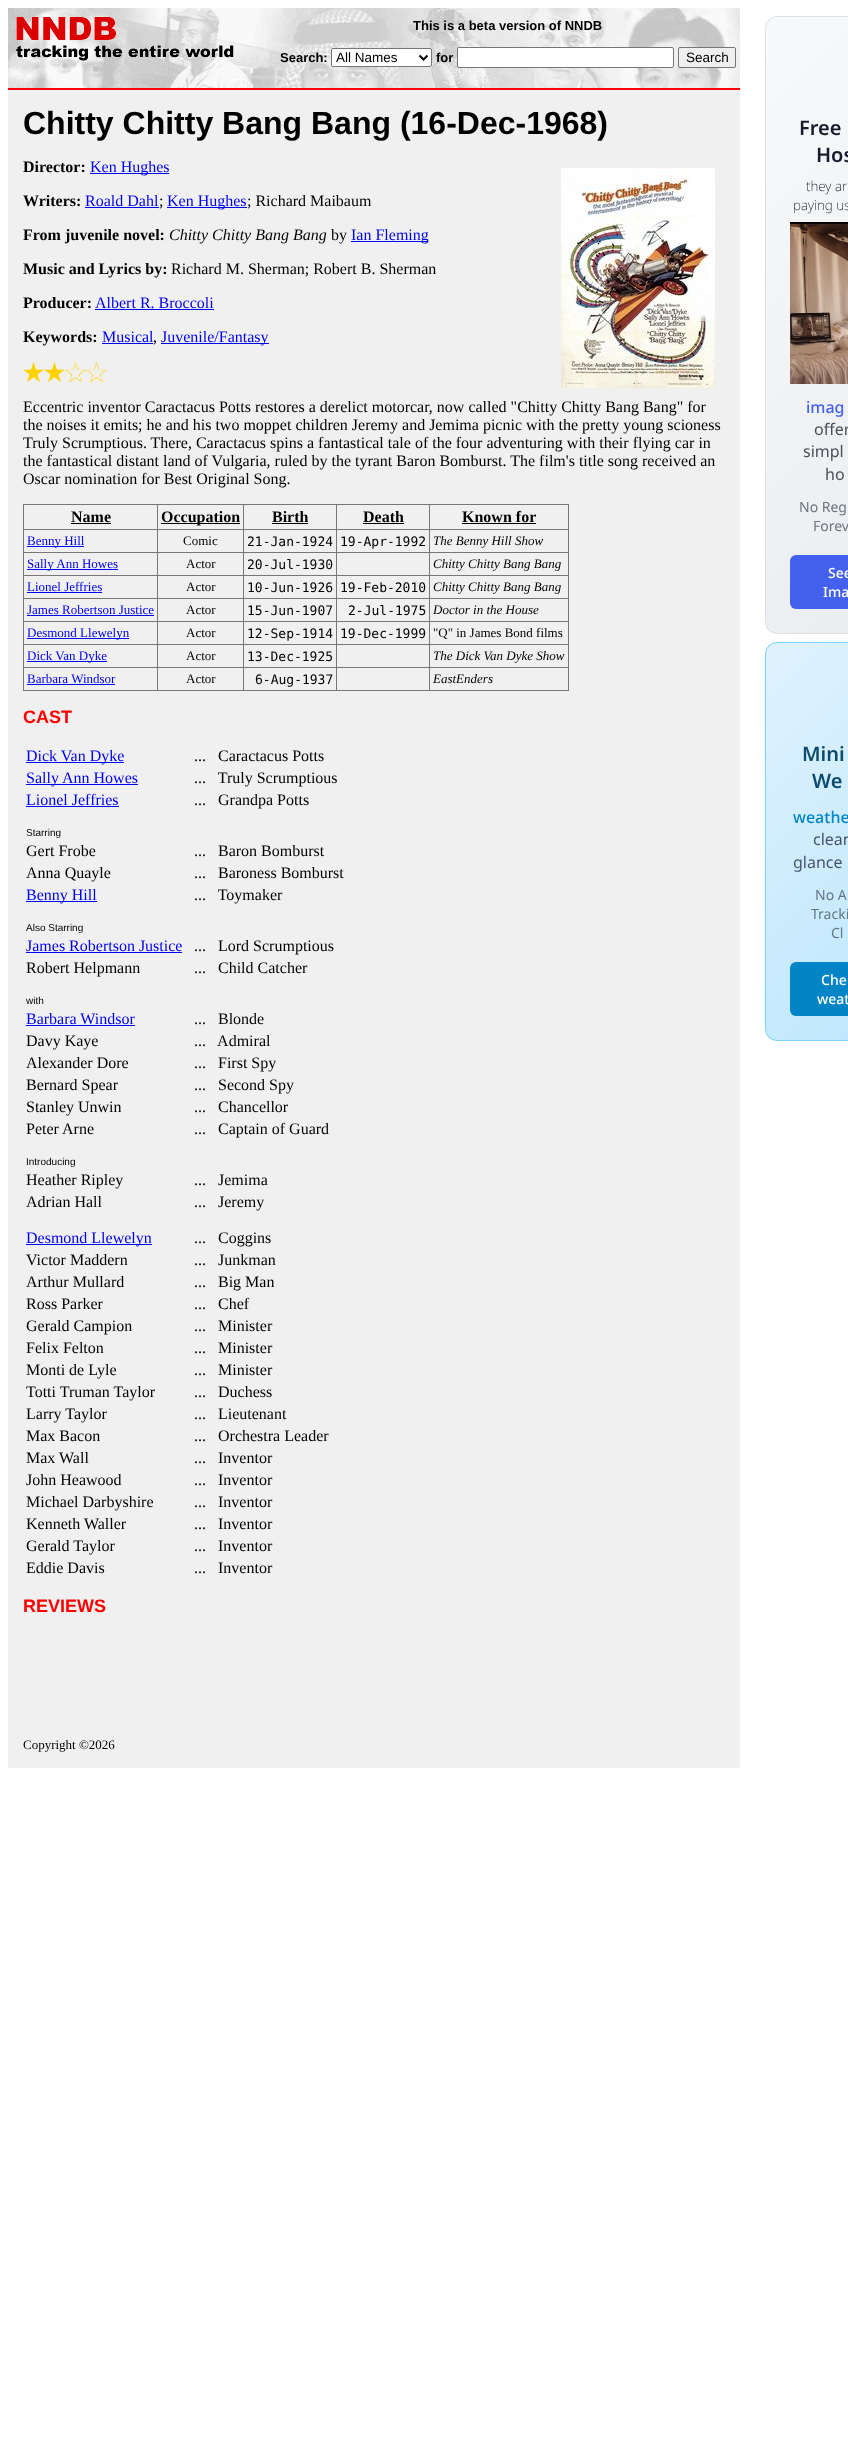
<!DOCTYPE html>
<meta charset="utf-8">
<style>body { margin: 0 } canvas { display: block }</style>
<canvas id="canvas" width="848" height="2453"></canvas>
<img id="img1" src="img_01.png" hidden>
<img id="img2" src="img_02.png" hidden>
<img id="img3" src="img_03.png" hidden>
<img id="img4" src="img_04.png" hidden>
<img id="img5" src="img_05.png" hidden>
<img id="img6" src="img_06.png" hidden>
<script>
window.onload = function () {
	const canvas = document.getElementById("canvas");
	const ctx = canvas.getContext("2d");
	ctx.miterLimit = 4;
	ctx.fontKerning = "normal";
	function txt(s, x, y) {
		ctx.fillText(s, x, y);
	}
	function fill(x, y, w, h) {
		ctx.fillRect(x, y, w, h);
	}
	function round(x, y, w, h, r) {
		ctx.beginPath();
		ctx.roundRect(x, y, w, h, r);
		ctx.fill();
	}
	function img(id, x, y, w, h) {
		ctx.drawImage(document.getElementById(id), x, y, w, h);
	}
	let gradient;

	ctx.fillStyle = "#FFFFFF";
	fill(0, 0, 848, 2453);
	img("img1", 8, 8, 732, 80);
	img("img2", 16, 17, 218, 44);
	ctx.beginPath();
	ctx.roundRect(331.5, 48.5, 100, 18, 1.5);
	ctx.fill();
	ctx.strokeStyle = "#767676";
	ctx.stroke();
	ctx.beginPath();
	ctx.moveTo(419.5, 55.5);
	ctx.lineTo(423.5, 59.5);
	ctx.lineTo(427.5, 55.5);
	ctx.strokeStyle = "#000000";
	ctx.lineWidth = 2;
	ctx.stroke();
	ctx.beginPath();
	ctx.roundRect(457.5, 47.5, 216, 20, 1.5);
	ctx.fill();
	ctx.strokeStyle = "#767676";
	ctx.lineWidth = 1;
	ctx.stroke();
	ctx.fillStyle = "#EFEFEF";
	ctx.beginPath();
	ctx.roundRect(678.5, 47.5, 57, 20, 1.5);
	ctx.fill();
	ctx.stroke();
	ctx.fillStyle = "#FF0000";
	fill(8, 88, 732, 2);
	ctx.fillStyle = "#F0F0F0";
	fill(8, 90, 732, 1678);
	ctx.fillStyle = "#0000EE";
	fill(90, 173, 79, 1);
	img("img3", 561, 168, 154, 220);
	fill(85, 207, 74, 1);
	fill(167, 207, 80, 1);
	fill(351, 241, 77, 1);
	fill(95, 309, 119, 1);
	fill(102, 343, 51, 1);
	fill(161, 343, 108, 1);
	img("img4", 23, 362, 21, 20);
	img("img4", 44, 362, 21, 20);
	img("img5", 65, 362, 21, 20);
	img("img5", 86, 362, 21, 20);
	ctx.fillStyle = "#777777";
	fill(23, 504, 546, 1);
	fill(568, 504, 1, 187);
	fill(23, 690, 546, 1);
	fill(23, 504, 1, 187);
	ctx.fillStyle = "#000000";
	fill(71, 523, 40, 1);
	ctx.fillStyle = "#777777";
	fill(429, 529, 140, 1);
	fill(429, 552, 140, 1);
	fill(429, 575, 140, 1);
	fill(429, 598, 140, 1);
	fill(429, 621, 140, 1);
	fill(429, 644, 140, 1);
	fill(429, 667, 140, 1);
	fill(429, 667, 1, 24);
	fill(336, 667, 94, 1);
	fill(429, 644, 1, 24);
	fill(336, 644, 94, 1);
	fill(429, 621, 1, 24);
	fill(336, 621, 94, 1);
	fill(429, 598, 1, 24);
	fill(336, 598, 94, 1);
	fill(429, 575, 1, 24);
	fill(336, 575, 94, 1);
	fill(429, 552, 1, 24);
	fill(336, 552, 94, 1);
	fill(429, 529, 1, 24);
	fill(336, 529, 94, 1);
	fill(336, 667, 1, 24);
	fill(243, 667, 94, 1);
	fill(336, 644, 1, 24);
	fill(243, 644, 94, 1);
	fill(336, 621, 1, 24);
	fill(243, 621, 94, 1);
	fill(336, 598, 1, 24);
	fill(243, 598, 94, 1);
	fill(336, 575, 1, 24);
	fill(243, 575, 94, 1);
	fill(336, 552, 1, 24);
	fill(243, 552, 94, 1);
	fill(336, 529, 1, 24);
	fill(243, 529, 94, 1);
	fill(243, 667, 1, 24);
	fill(157, 667, 87, 1);
	fill(243, 644, 1, 24);
	fill(157, 644, 87, 1);
	fill(243, 621, 1, 24);
	fill(157, 621, 87, 1);
	fill(243, 598, 1, 24);
	fill(157, 598, 87, 1);
	fill(243, 575, 1, 24);
	fill(157, 575, 87, 1);
	fill(243, 552, 1, 24);
	fill(157, 552, 87, 1);
	fill(243, 529, 1, 24);
	fill(157, 529, 87, 1);
	fill(157, 667, 1, 24);
	fill(23, 667, 135, 1);
	fill(157, 644, 1, 24);
	fill(23, 644, 135, 1);
	fill(157, 621, 1, 24);
	fill(23, 621, 135, 1);
	fill(157, 598, 1, 24);
	fill(23, 598, 135, 1);
	fill(157, 575, 1, 24);
	fill(23, 575, 135, 1);
	fill(157, 552, 1, 24);
	fill(23, 552, 135, 1);
	fill(157, 529, 1, 24);
	fill(23, 529, 135, 1);
	fill(157, 504, 1, 26);
	ctx.fillStyle = "#000000";
	fill(161, 523, 79, 1);
	ctx.fillStyle = "#777777";
	fill(243, 504, 1, 26);
	ctx.fillStyle = "#000000";
	fill(272, 523, 36, 1);
	ctx.fillStyle = "#777777";
	fill(336, 504, 1, 26);
	ctx.fillStyle = "#000000";
	fill(363, 523, 41, 1);
	ctx.fillStyle = "#777777";
	fill(429, 504, 1, 26);
	ctx.fillStyle = "#000000";
	fill(462, 523, 74, 1);
	ctx.fillStyle = "#0000EE";
	fill(27, 546, 57, 1);
	fill(27, 569, 91, 1);
	fill(27, 592, 75, 1);
	fill(27, 615, 127, 1);
	fill(27, 638, 102, 1);
	fill(27, 661, 80, 1);
	fill(27, 684, 88, 1);
	fill(26, 762, 98, 1);
	fill(26, 784, 112, 1);
	fill(26, 806, 93, 1);
	fill(26, 901, 71, 1);
	fill(26, 952, 156, 1);
	fill(26, 1025, 109, 1);
	fill(26, 1244, 126, 1);
	ctx.save();
	ctx.beginPath();
	ctx.roundRect(765, 16, 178, 618, 12);
	ctx.clip();
	gradient = ctx.createLinearGradient(656, 127, 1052, 523);
	gradient.addColorStop(0, "#F8F9FA");
	gradient.addColorStop(1, "#E9ECEF");
	ctx.fillStyle = gradient;
	fill(766, 17, 82, 616);
	ctx.restore();
	ctx.beginPath();
	ctx.roundRect(765.5, 16.5, 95, 617, 11.5);
	ctx.strokeStyle = "#DEE2E6";
	ctx.stroke();
	img("img6", 790, 222, 58, 162);
	ctx.fillStyle = "#4361EE";
	round(790, 555, 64, 54, 6);
	ctx.save();
	ctx.beginPath();
	ctx.roundRect(765, 642, 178, 399, 12);
	ctx.clip();
	gradient = ctx.createLinearGradient(711, 698, 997, 985);
	gradient.addColorStop(0, "#E0F2FE");
	gradient.addColorStop(1, "#BAE6FD");
	ctx.fillStyle = gradient;
	fill(766, 643, 82, 397);
	ctx.restore();
	ctx.beginPath();
	ctx.roundRect(765.5, 642.5, 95, 398, 11.5);
	ctx.strokeStyle = "#7DD3FC";
	ctx.stroke();
	ctx.fillStyle = "#0284C7";
	round(790, 962, 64, 54, 6);
	ctx.font = "bold 13px Liberation Sans";
	ctx.fillStyle = "#000000";
	txt("This is a beta version of NNDB", 413, 30);
	txt("Search:", 280, 62);
	ctx.font = "13.5px Liberation Sans";
	txt("All Names", 336, 62);
	ctx.font = "bold 13px Liberation Sans";
	txt("for", 436, 62);
	ctx.font = "13.5px Liberation Sans";
	txt("Search", 686, 62);
	ctx.font = "bold 32px Liberation Sans";
	txt("Chitty Chitty Bang Bang (16-Dec-1968)", 23, 134);
	ctx.font = "bold 16px Liberation Serif";
	txt("Director:", 23, 172);
	ctx.font = "16px Liberation Serif";
	ctx.fillStyle = "#0000EE";
	txt("Ken Hughes", 90, 172);
	ctx.font = "bold 16px Liberation Serif";
	ctx.fillStyle = "#000000";
	txt("Writers:", 23, 206);
	ctx.font = "16px Liberation Serif";
	ctx.fillStyle = "#0000EE";
	txt("Roald Dahl", 85, 206);
	ctx.fillStyle = "#000000";
	txt(";", 159, 206);
	ctx.fillStyle = "#0000EE";
	txt("Ken Hughes", 167, 206);
	ctx.fillStyle = "#000000";
	txt("; Richard Maibaum", 247, 206);
	ctx.font = "bold 16px Liberation Serif";
	txt("From juvenile novel:", 23, 240);
	ctx.font = "italic 16px Liberation Serif";
	txt("Chitty Chitty Bang Bang", 169, 240);
	ctx.font = "16px Liberation Serif";
	txt("by", 331, 240);
	ctx.fillStyle = "#0000EE";
	txt("Ian Fleming", 351, 240);
	ctx.font = "bold 16px Liberation Serif";
	ctx.fillStyle = "#000000";
	txt("Music and Lyrics by:", 23, 274);
	ctx.font = "16px Liberation Serif";
	txt("Richard M. Sherman; Robert B. Sherman", 171, 274);
	ctx.font = "bold 16px Liberation Serif";
	txt("Producer:", 23, 308);
	ctx.font = "16px Liberation Serif";
	ctx.fillStyle = "#0000EE";
	txt("Albert R. Broccoli", 95, 308);
	ctx.font = "bold 16px Liberation Serif";
	ctx.fillStyle = "#000000";
	txt("Keywords:", 23, 342);
	ctx.font = "16px Liberation Serif";
	ctx.fillStyle = "#0000EE";
	txt("Musical", 102, 342);
	ctx.fillStyle = "#000000";
	txt(",", 153, 342);
	ctx.fillStyle = "#0000EE";
	txt("Juvenile/Fantasy", 161, 342);
	ctx.fillStyle = "#000000";
	txt("Eccentric inventor Caractacus Potts restores a derelict motorcar, now called \"Chitty Chitty Bang Bang\" for", 23, 412);
	txt("the noises it emits; he and his two moppet children Jeremy and Jemima picnic with the pretty young scioness", 23, 430);
	txt("Truly Scrumptious. There, Caractacus spins a fantastical tale of the four adventuring with their flying car in", 23, 448);
	txt("the fantastical distant land of Vulgaria, ruled by the tyrant Baron Bomburst. The film's title song received an", 23, 466);
	txt("Oscar nomination for Best Original Song.", 23, 484);
	ctx.font = "bold 16px Liberation Serif";
	txt("Name", 71, 522);
	txt("Occupation", 161, 522);
	txt("Birth", 272, 522);
	txt("Death", 363, 522);
	txt("Known for", 462, 522);
	ctx.font = "13px Liberation Serif";
	ctx.fillStyle = "#0000EE";
	txt("Benny Hill", 27, 545);
	ctx.fillStyle = "#000000";
	txt("Comic", 183, 545);
	ctx.font = "13px DejaVu Sans Mono";
	txt("21-Jan-1924", 247, 546);
	txt("19-Apr-1992", 340, 546);
	ctx.font = "italic 13px Liberation Serif";
	txt("The Benny Hill Show", 433, 545);
	ctx.font = "13px Liberation Serif";
	ctx.fillStyle = "#0000EE";
	txt("Sally Ann Howes", 27, 568);
	ctx.fillStyle = "#000000";
	txt("Actor", 186, 568);
	ctx.font = "13px DejaVu Sans Mono";
	txt("20-Jul-1930", 247, 569);
	ctx.font = "italic 13px Liberation Serif";
	txt("Chitty Chitty Bang Bang", 433, 568);
	ctx.font = "13px Liberation Serif";
	ctx.fillStyle = "#0000EE";
	txt("Lionel Jeffries", 27, 591);
	ctx.fillStyle = "#000000";
	txt("Actor", 186, 591);
	ctx.font = "13px DejaVu Sans Mono";
	txt("10-Jun-1926", 247, 592);
	txt("19-Feb-2010", 340, 592);
	ctx.font = "italic 13px Liberation Serif";
	txt("Chitty Chitty Bang Bang", 433, 591);
	ctx.font = "13px Liberation Serif";
	ctx.fillStyle = "#0000EE";
	txt("James Robertson Justice", 27, 614);
	ctx.fillStyle = "#000000";
	txt("Actor", 186, 614);
	ctx.font = "13px DejaVu Sans Mono";
	txt("15-Jun-1907", 247, 615);
	txt("2-Jul-1975", 348, 615);
	ctx.font = "italic 13px Liberation Serif";
	txt("Doctor in the House", 433, 614);
	ctx.font = "13px Liberation Serif";
	ctx.fillStyle = "#0000EE";
	txt("Desmond Llewelyn", 27, 637);
	ctx.fillStyle = "#000000";
	txt("Actor", 186, 637);
	ctx.font = "13px DejaVu Sans Mono";
	txt("12-Sep-1914", 247, 638);
	txt("19-Dec-1999", 340, 638);
	ctx.font = "13px Liberation Serif";
	txt("\"Q\" in James Bond films", 433, 637);
	ctx.fillStyle = "#0000EE";
	txt("Dick Van Dyke", 27, 660);
	ctx.fillStyle = "#000000";
	txt("Actor", 186, 660);
	ctx.font = "13px DejaVu Sans Mono";
	txt("13-Dec-1925", 247, 661);
	ctx.font = "italic 13px Liberation Serif";
	txt("The Dick Van Dyke Show", 433, 660);
	ctx.font = "13px Liberation Serif";
	ctx.fillStyle = "#0000EE";
	txt("Barbara Windsor", 27, 683);
	ctx.fillStyle = "#000000";
	txt("Actor", 186, 683);
	ctx.font = "13px DejaVu Sans Mono";
	txt("6-Aug-1937", 255, 684);
	ctx.font = "italic 13px Liberation Serif";
	txt("EastEnders", 433, 683);
	ctx.font = "bold 18px Liberation Sans";
	ctx.fillStyle = "#FF0000";
	txt("CAST", 23, 723);
	ctx.font = "16px Liberation Serif";
	ctx.fillStyle = "#0000EE";
	txt("Dick Van Dyke", 26, 761);
	ctx.fillStyle = "#000000";
	txt("...   Caractacus Potts", 194, 761);
	ctx.fillStyle = "#0000EE";
	txt("Sally Ann Howes", 26, 783);
	ctx.fillStyle = "#000000";
	txt("...   Truly Scrumptious", 194, 783);
	ctx.fillStyle = "#0000EE";
	txt("Lionel Jeffries", 26, 805);
	ctx.fillStyle = "#000000";
	txt("...   Grandpa Potts", 194, 805);
	ctx.font = "10px Liberation Sans";
	txt("Starring", 26, 836);
	ctx.font = "16px Liberation Serif";
	txt("Gert Frobe", 26, 856);
	txt("...   Baron Bomburst", 194, 856);
	txt("Anna Quayle", 26, 878);
	txt("...   Baroness Bomburst", 194, 878);
	ctx.fillStyle = "#0000EE";
	txt("Benny Hill", 26, 900);
	ctx.fillStyle = "#000000";
	txt("...   Toymaker", 194, 900);
	ctx.font = "10px Liberation Sans";
	txt("Also Starring", 26, 931);
	ctx.font = "16px Liberation Serif";
	ctx.fillStyle = "#0000EE";
	txt("James Robertson Justice", 26, 951);
	ctx.fillStyle = "#000000";
	txt("...   Lord Scrumptious", 194, 951);
	txt("Robert Helpmann", 26, 973);
	txt("...   Child Catcher", 194, 973);
	ctx.font = "10px Liberation Sans";
	txt("with", 26, 1004);
	ctx.font = "16px Liberation Serif";
	ctx.fillStyle = "#0000EE";
	txt("Barbara Windsor", 26, 1024);
	ctx.fillStyle = "#000000";
	txt("...   Blonde", 194, 1024);
	txt("Davy Kaye", 26, 1046);
	txt("...   Admiral", 194, 1046);
	txt("Alexander Dore", 26, 1068);
	txt("...   First Spy", 194, 1068);
	txt("Bernard Spear", 26, 1090);
	txt("...   Second Spy", 194, 1090);
	txt("Stanley Unwin", 26, 1112);
	txt("...   Chancellor", 194, 1112);
	txt("Peter Arne", 26, 1134);
	txt("...   Captain of Guard", 194, 1134);
	ctx.font = "10px Liberation Sans";
	txt("Introducing", 26, 1165);
	ctx.font = "16px Liberation Serif";
	txt("Heather Ripley", 26, 1185);
	txt("...   Jemima", 194, 1185);
	txt("Adrian Hall", 26, 1207);
	txt("...   Jeremy", 194, 1207);
	ctx.fillStyle = "#0000EE";
	txt("Desmond Llewelyn", 26, 1243);
	ctx.fillStyle = "#000000";
	txt("...   Coggins", 194, 1243);
	txt("Victor Maddern", 26, 1265);
	txt("...   Junkman", 194, 1265);
	txt("Arthur Mullard", 26, 1287);
	txt("...   Big Man", 194, 1287);
	txt("Ross Parker", 26, 1309);
	txt("...   Chef", 194, 1309);
	txt("Gerald Campion", 26, 1331);
	txt("...   Minister", 194, 1331);
	txt("Felix Felton", 26, 1353);
	txt("...   Minister", 194, 1353);
	txt("Monti de Lyle", 26, 1375);
	txt("...   Minister", 194, 1375);
	txt("Totti Truman Taylor", 26, 1397);
	txt("...   Duchess", 194, 1397);
	txt("Larry Taylor", 26, 1419);
	txt("...   Lieutenant", 194, 1419);
	txt("Max Bacon", 26, 1441);
	txt("...   Orchestra Leader", 194, 1441);
	txt("Max Wall", 26, 1463);
	txt("...   Inventor", 194, 1463);
	txt("John Heawood", 26, 1485);
	txt("...   Inventor", 194, 1485);
	txt("Michael Darbyshire", 26, 1507);
	txt("...   Inventor", 194, 1507);
	txt("Kenneth Waller", 26, 1529);
	txt("...   Inventor", 194, 1529);
	txt("Gerald Taylor", 26, 1551);
	txt("...   Inventor", 194, 1551);
	txt("Eddie Davis", 26, 1573);
	txt("...   Inventor", 194, 1573);
	ctx.font = "bold 18px Liberation Sans";
	ctx.fillStyle = "#FF0000";
	txt("REVIEWS", 23, 1612);
	ctx.font = "13px Liberation Serif";
	ctx.fillStyle = "#000000";
	txt("Copyright ©2026", 23, 1749);
	ctx.font = "600 20px Noto Sans";
	ctx.fillStyle = "#1A1A2E";
	txt("Free", 799, 135);
	txt("Hos", 816, 162);
	ctx.font = "200 13.5px Noto Sans";
	ctx.fillStyle = "#0A0A1E";
	txt("they ar", 806, 191);
	txt("paying us", 793, 210);
	ctx.font = "500 16px Noto Sans";
	ctx.fillStyle = "#4361EE";
	txt("imag", 806, 413);
	ctx.font = "16px Noto Sans";
	ctx.fillStyle = "#495057";
	txt("offer", 814, 435);
	txt("simpl", 803, 457);
	txt("ho", 825, 480);
	ctx.font = "14px Noto Sans";
	ctx.fillStyle = "#6C757D";
	txt("No Reg", 799, 512);
	txt("Forev", 813, 531);
	ctx.font = "500 14px Noto Sans";
	ctx.fillStyle = "#FFFFFF";
	txt("See", 828, 578);
	txt("Ima", 823, 597);
	ctx.font = "600 20px Noto Sans";
	ctx.fillStyle = "#0C4A6E";
	txt("Mini", 802, 761);
	txt("We", 812, 788);
	ctx.font = "500 16px Noto Sans";
	ctx.fillStyle = "#0284C7";
	txt("weathe", 793, 823);
	ctx.font = "16px Noto Sans";
	ctx.fillStyle = "#475569";
	txt("clean", 813, 845);
	txt("glance", 793, 868);
	ctx.font = "14px Noto Sans";
	ctx.fillStyle = "#64748B";
	txt("No A", 815, 900);
	txt("Tracki", 811, 919);
	txt("Cl", 831, 938);
	ctx.font = "500 14px Noto Sans";
	ctx.fillStyle = "#FFFFFF";
	txt("Che", 821, 985);
	txt("weat", 817, 1004);
};
</script>
